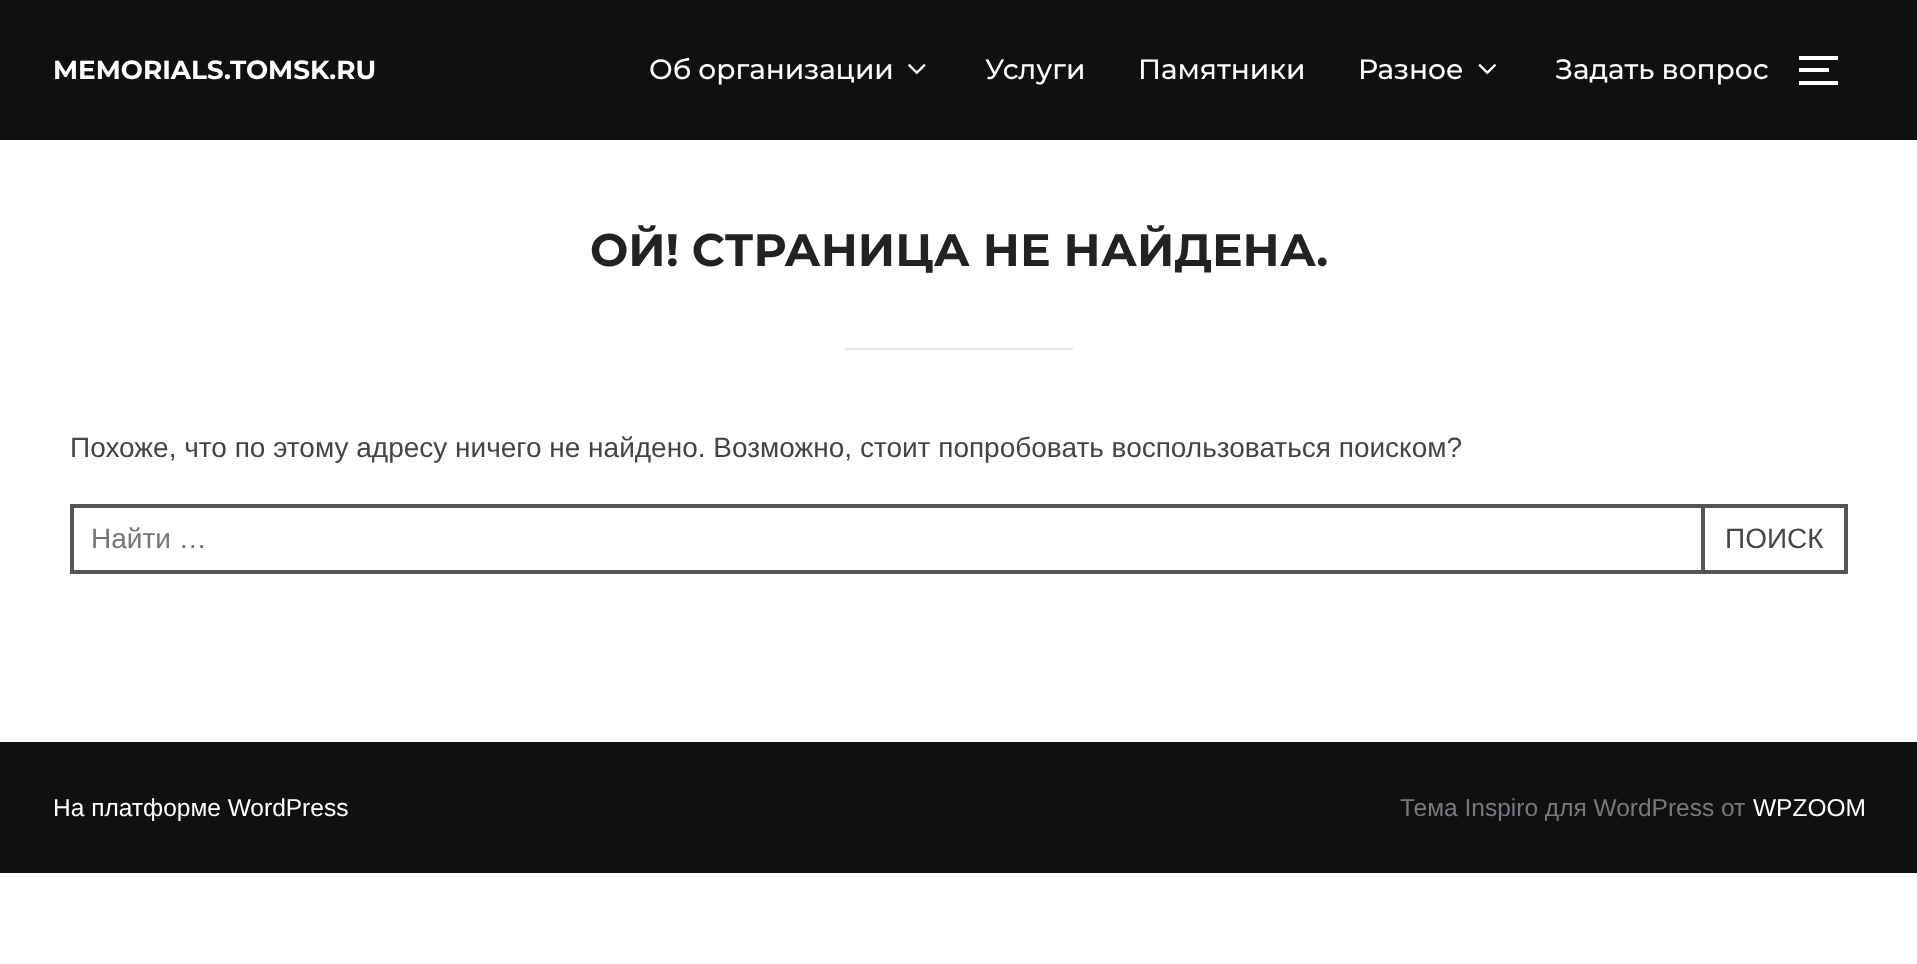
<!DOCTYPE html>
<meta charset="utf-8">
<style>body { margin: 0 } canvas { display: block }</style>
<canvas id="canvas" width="1917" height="964"></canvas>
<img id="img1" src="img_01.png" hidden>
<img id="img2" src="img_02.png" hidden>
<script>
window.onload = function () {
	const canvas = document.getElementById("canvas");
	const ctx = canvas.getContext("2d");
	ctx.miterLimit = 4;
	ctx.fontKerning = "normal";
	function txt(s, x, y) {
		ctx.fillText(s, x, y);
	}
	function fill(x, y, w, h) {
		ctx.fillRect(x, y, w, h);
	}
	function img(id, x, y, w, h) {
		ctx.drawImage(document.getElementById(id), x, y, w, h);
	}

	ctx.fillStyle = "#FFFFFF";
	fill(0, 0, 1917, 964);
	ctx.fillStyle = "#101010";
	fill(0, 0, 1917, 140);
	img("img1", 908, 64, 18, 11);
	img("img2", 1478, 64, 18, 11);
	ctx.fillStyle = "#FFFFFF";
	fill(1799, 56, 39, 4);
	fill(1799, 68, 30, 4);
	fill(1799, 81, 39, 4);
	ctx.fillStyle = "#E6E6E6";
	fill(845, 348, 228, 2);
	ctx.strokeStyle = "#565555";
	ctx.lineWidth = 4;
	ctx.strokeRect(72, 506, 1774, 66);
	ctx.strokeRect(1703, 506, 143, 66);
	ctx.fillStyle = "#101010";
	fill(0, 742, 1917, 131);
	ctx.font = "bold 26.25px Montserrat";
	ctx.fillStyle = "#FFFFFF";
	txt("MEMORIALS.TOMSK.RU", 53, 79);
	ctx.font = "500 28px Montserrat";
	txt("Об организации", 649, 79);
	txt("Услуги", 985, 79);
	txt("Памятники", 1138, 79);
	txt("Разное", 1358, 79);
	txt("Задать вопрос", 1555, 79);
	ctx.font = "bold 45.5px Montserrat";
	ctx.fillStyle = "#222222";
	txt("ОЙ! СТРАНИЦА НЕ НАЙДЕНА.", 590, 266);
	ctx.font = "28px Liberation Sans";
	ctx.fillStyle = "#444444";
	txt("Похоже, что по этому адресу ничего не найдено. Возможно, стоит попробовать воспользоваться поиском?", 70, 457);
	ctx.fillStyle = "#757575";
	txt("Найти …", 91, 548);
	ctx.fillStyle = "#444444";
	txt("ПОИСК", 1725, 548);
	ctx.font = "24.5px Liberation Sans";
	ctx.fillStyle = "#FFFFFF";
	txt("На платформе WordPress", 53, 816);
	ctx.fillStyle = "#78787F";
	txt("Тема Inspiro для WordPress от", 1400, 816);
	ctx.fillStyle = "#FFFFFF";
	txt("WPZOOM", 1753, 816);
};
</script>
